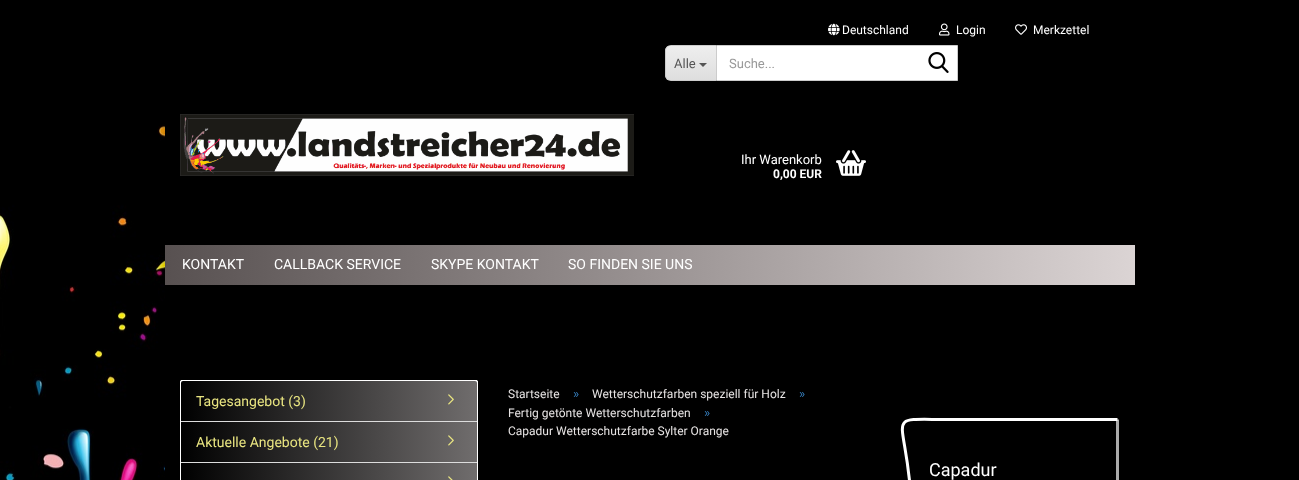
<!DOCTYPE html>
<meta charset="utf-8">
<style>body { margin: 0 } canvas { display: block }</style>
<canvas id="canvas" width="1299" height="480"></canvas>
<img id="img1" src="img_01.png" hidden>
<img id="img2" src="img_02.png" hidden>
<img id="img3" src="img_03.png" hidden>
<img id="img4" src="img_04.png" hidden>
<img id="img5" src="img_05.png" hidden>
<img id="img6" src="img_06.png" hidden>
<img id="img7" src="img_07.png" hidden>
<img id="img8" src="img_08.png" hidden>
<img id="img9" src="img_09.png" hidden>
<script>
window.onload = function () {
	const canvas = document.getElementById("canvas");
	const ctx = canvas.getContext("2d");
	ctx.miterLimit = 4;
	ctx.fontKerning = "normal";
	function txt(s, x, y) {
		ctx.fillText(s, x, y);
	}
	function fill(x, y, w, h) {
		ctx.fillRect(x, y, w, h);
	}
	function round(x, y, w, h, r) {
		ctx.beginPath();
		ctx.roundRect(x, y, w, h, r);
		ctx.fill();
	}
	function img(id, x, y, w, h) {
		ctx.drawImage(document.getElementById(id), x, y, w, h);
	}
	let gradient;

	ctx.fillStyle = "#000000";
	fill(0, 0, 1299, 480);
	img("img1", 0, 46, 171, 434);
	ctx.fillStyle = "rgba(0, 0, 0, 0.3)";
	ctx.filter = "blur(5px)";
	ctx.beginPath();
	ctx.roundRect(165, 45, 970, 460, 10);
	ctx.fill();
	ctx.filter = "none";
	ctx.fillStyle = "#000000";
	round(165, 45, 970, 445, 10);
	img("img2", 828, 23, 12, 13);
	img("img3", 939, 23, 11, 13);
	img("img4", 1015, 24, 12, 11);
	ctx.save();
	ctx.beginPath();
	ctx.roundRect(665, 45, 51, 36, [6, 0, 0, 6]);
	ctx.clip();
	gradient = ctx.createLinearGradient(691, 46, 691, 80);
	gradient.addColorStop(0, "#EEEEEE");
	gradient.addColorStop(1, "#DEDEDE");
	ctx.fillStyle = gradient;
	fill(665, 46, 51, 34);
	ctx.restore();
	ctx.fillStyle = "#CCCCCC";
	ctx.beginPath();
	ctx.moveTo(671, 45);
	ctx.lineTo(716, 45);
	ctx.lineTo(716, 81);
	ctx.lineTo(671, 81);
	ctx.bezierCurveTo(668, 81, 665, 78, 665, 75);
	ctx.lineTo(665, 51);
	ctx.bezierCurveTo(665, 48, 668, 45, 671, 45);
	ctx.closePath();
	ctx.moveTo(671, 46);
	ctx.lineTo(716, 46);
	ctx.lineTo(716, 80);
	ctx.lineTo(671, 80);
	ctx.bezierCurveTo(668, 80, 666, 78, 666, 75);
	ctx.lineTo(666, 51);
	ctx.bezierCurveTo(666, 48, 668, 46, 671, 46);
	ctx.closePath();
	ctx.fill("evenodd");
	ctx.fillStyle = "#555555";
	ctx.beginPath();
	ctx.moveTo(699, 63);
	ctx.lineTo(707, 63);
	ctx.lineTo(703, 67);
	ctx.closePath();
	ctx.fill();
	ctx.fillStyle = "#FFFFFF";
	ctx.beginPath();
	ctx.rect(716.5, 45.5, 241, 35);
	ctx.fill();
	ctx.strokeStyle = "#CCCCCC";
	ctx.stroke();
	img("img5", 928, 52, 21, 21);
	img("img6", 180, 114, 454, 62);
	img("img7", 836, 150, 30, 26);
	gradient = ctx.createLinearGradient(165, 265, 1135, 265);
	gradient.addColorStop(0, "#585151");
	gradient.addColorStop(1, "#DBD4D4");
	ctx.fillStyle = gradient;
	fill(165, 245, 970, 40);
	ctx.fillStyle = "#FFFFFF";
	round(180, 380, 298, 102, 2);
	fill(181, 380, 296, 1);
	fill(477, 381, 1, 1);
	fill(180, 381, 1, 1);
	ctx.fillStyle = "#DDDDDD";
	fill(181, 421, 296, 1);
	gradient = ctx.createLinearGradient(181, 401, 477, 401);
	gradient.addColorStop(0, "#000000");
	gradient.addColorStop(1, "#706D6D");
	ctx.fillStyle = gradient;
	ctx.beginPath();
	ctx.roundRect(181, 381, 296, 40, [2, 2, 0, 0]);
	ctx.fill();
	img("img8", 448, 394, 6, 11);
	ctx.fillStyle = "#DDDDDD";
	fill(181, 462, 296, 1);
	gradient = ctx.createLinearGradient(181, 442, 477, 442);
	gradient.addColorStop(0, "#000000");
	gradient.addColorStop(1, "#706D6D");
	ctx.fillStyle = gradient;
	fill(181, 422, 296, 40);
	img("img8", 448, 435, 6, 11);
	gradient = ctx.createLinearGradient(181, 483, 477, 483);
	gradient.addColorStop(0, "#000000");
	gradient.addColorStop(1, "#706D6D");
	ctx.fillStyle = gradient;
	fill(181, 463, 296, 17);
	img("img9", 448, 476, 5, 4);
	ctx.beginPath();
	ctx.moveTo(1117.5, 419.5);
	ctx.lineTo(1117.5, 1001);
	ctx.bezierCurveTo(1117.5, 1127.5, 1156, 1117.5, 1083, 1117.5);
	ctx.lineTo(912.5, 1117.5);
	ctx.strokeStyle = "#AAAAAA";
	ctx.lineWidth = 3;
	ctx.stroke();
	ctx.beginPath();
	ctx.moveTo(912.5, 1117.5);
	ctx.lineTo(912.5, 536);
	ctx.bezierCurveTo(912.5, 409.5, 874, 419.5, 947, 419.5);
	ctx.lineTo(1117.5, 419.5);
	ctx.strokeStyle = "#FFFFFF";
	ctx.stroke();
	ctx.font = "12px Roboto";
	ctx.fillStyle = "#FFFFFF";
	txt("Deutschland", 842, 34);
	txt("Login", 956, 34);
	txt("Merkzettel", 1033, 34);
	ctx.font = "13px Roboto";
	ctx.fillStyle = "#555555";
	txt("Alle", 674, 68);
	ctx.fillStyle = "#999999";
	txt("Suche...", 729, 68);
	ctx.fillStyle = "#FFFFFF";
	txt("Ihr Warenkorb", 741, 164);
	ctx.font = "bold 12px Roboto";
	txt("0,00 EUR", 773, 178);
	ctx.font = "14px Roboto";
	txt("KONTAKT", 182, 269);
	txt("CALLBACK SERVICE", 274, 269);
	txt("SKYPE KONTAKT", 431, 269);
	txt("SO FINDEN SIE UNS", 568, 269);
	ctx.fillStyle = "#E9E581";
	txt("Tagesangebot (3)", 196, 406);
	txt("Aktuelle Angebote (21)", 196, 447);
	ctx.font = "12px Roboto";
	ctx.fillStyle = "#E7E4E4";
	txt("Startseite", 508, 398);
	ctx.font = "13px Roboto";
	ctx.fillStyle = "#337AB7";
	txt("»", 573, 398);
	ctx.font = "12px Roboto";
	ctx.fillStyle = "#E7E4E4";
	txt("Wetterschutzfarben speziell für Holz", 592, 398);
	ctx.font = "13px Roboto";
	ctx.fillStyle = "#337AB7";
	txt("»", 799, 398);
	ctx.font = "12px Roboto";
	ctx.fillStyle = "#E7E4E4";
	txt("Fertig getönte Wetterschutzfarben", 508, 417);
	ctx.font = "13px Roboto";
	ctx.fillStyle = "#337AB7";
	txt("»", 704, 417);
	ctx.font = "12px Roboto";
	ctx.fillStyle = "#E7E4E4";
	txt("Capadur Wetterschutzfarbe Sylter Orange", 508, 435);
	ctx.font = "18px Roboto";
	ctx.fillStyle = "#FFFFFF";
	txt("Capadur", 929, 476);
};
</script>
